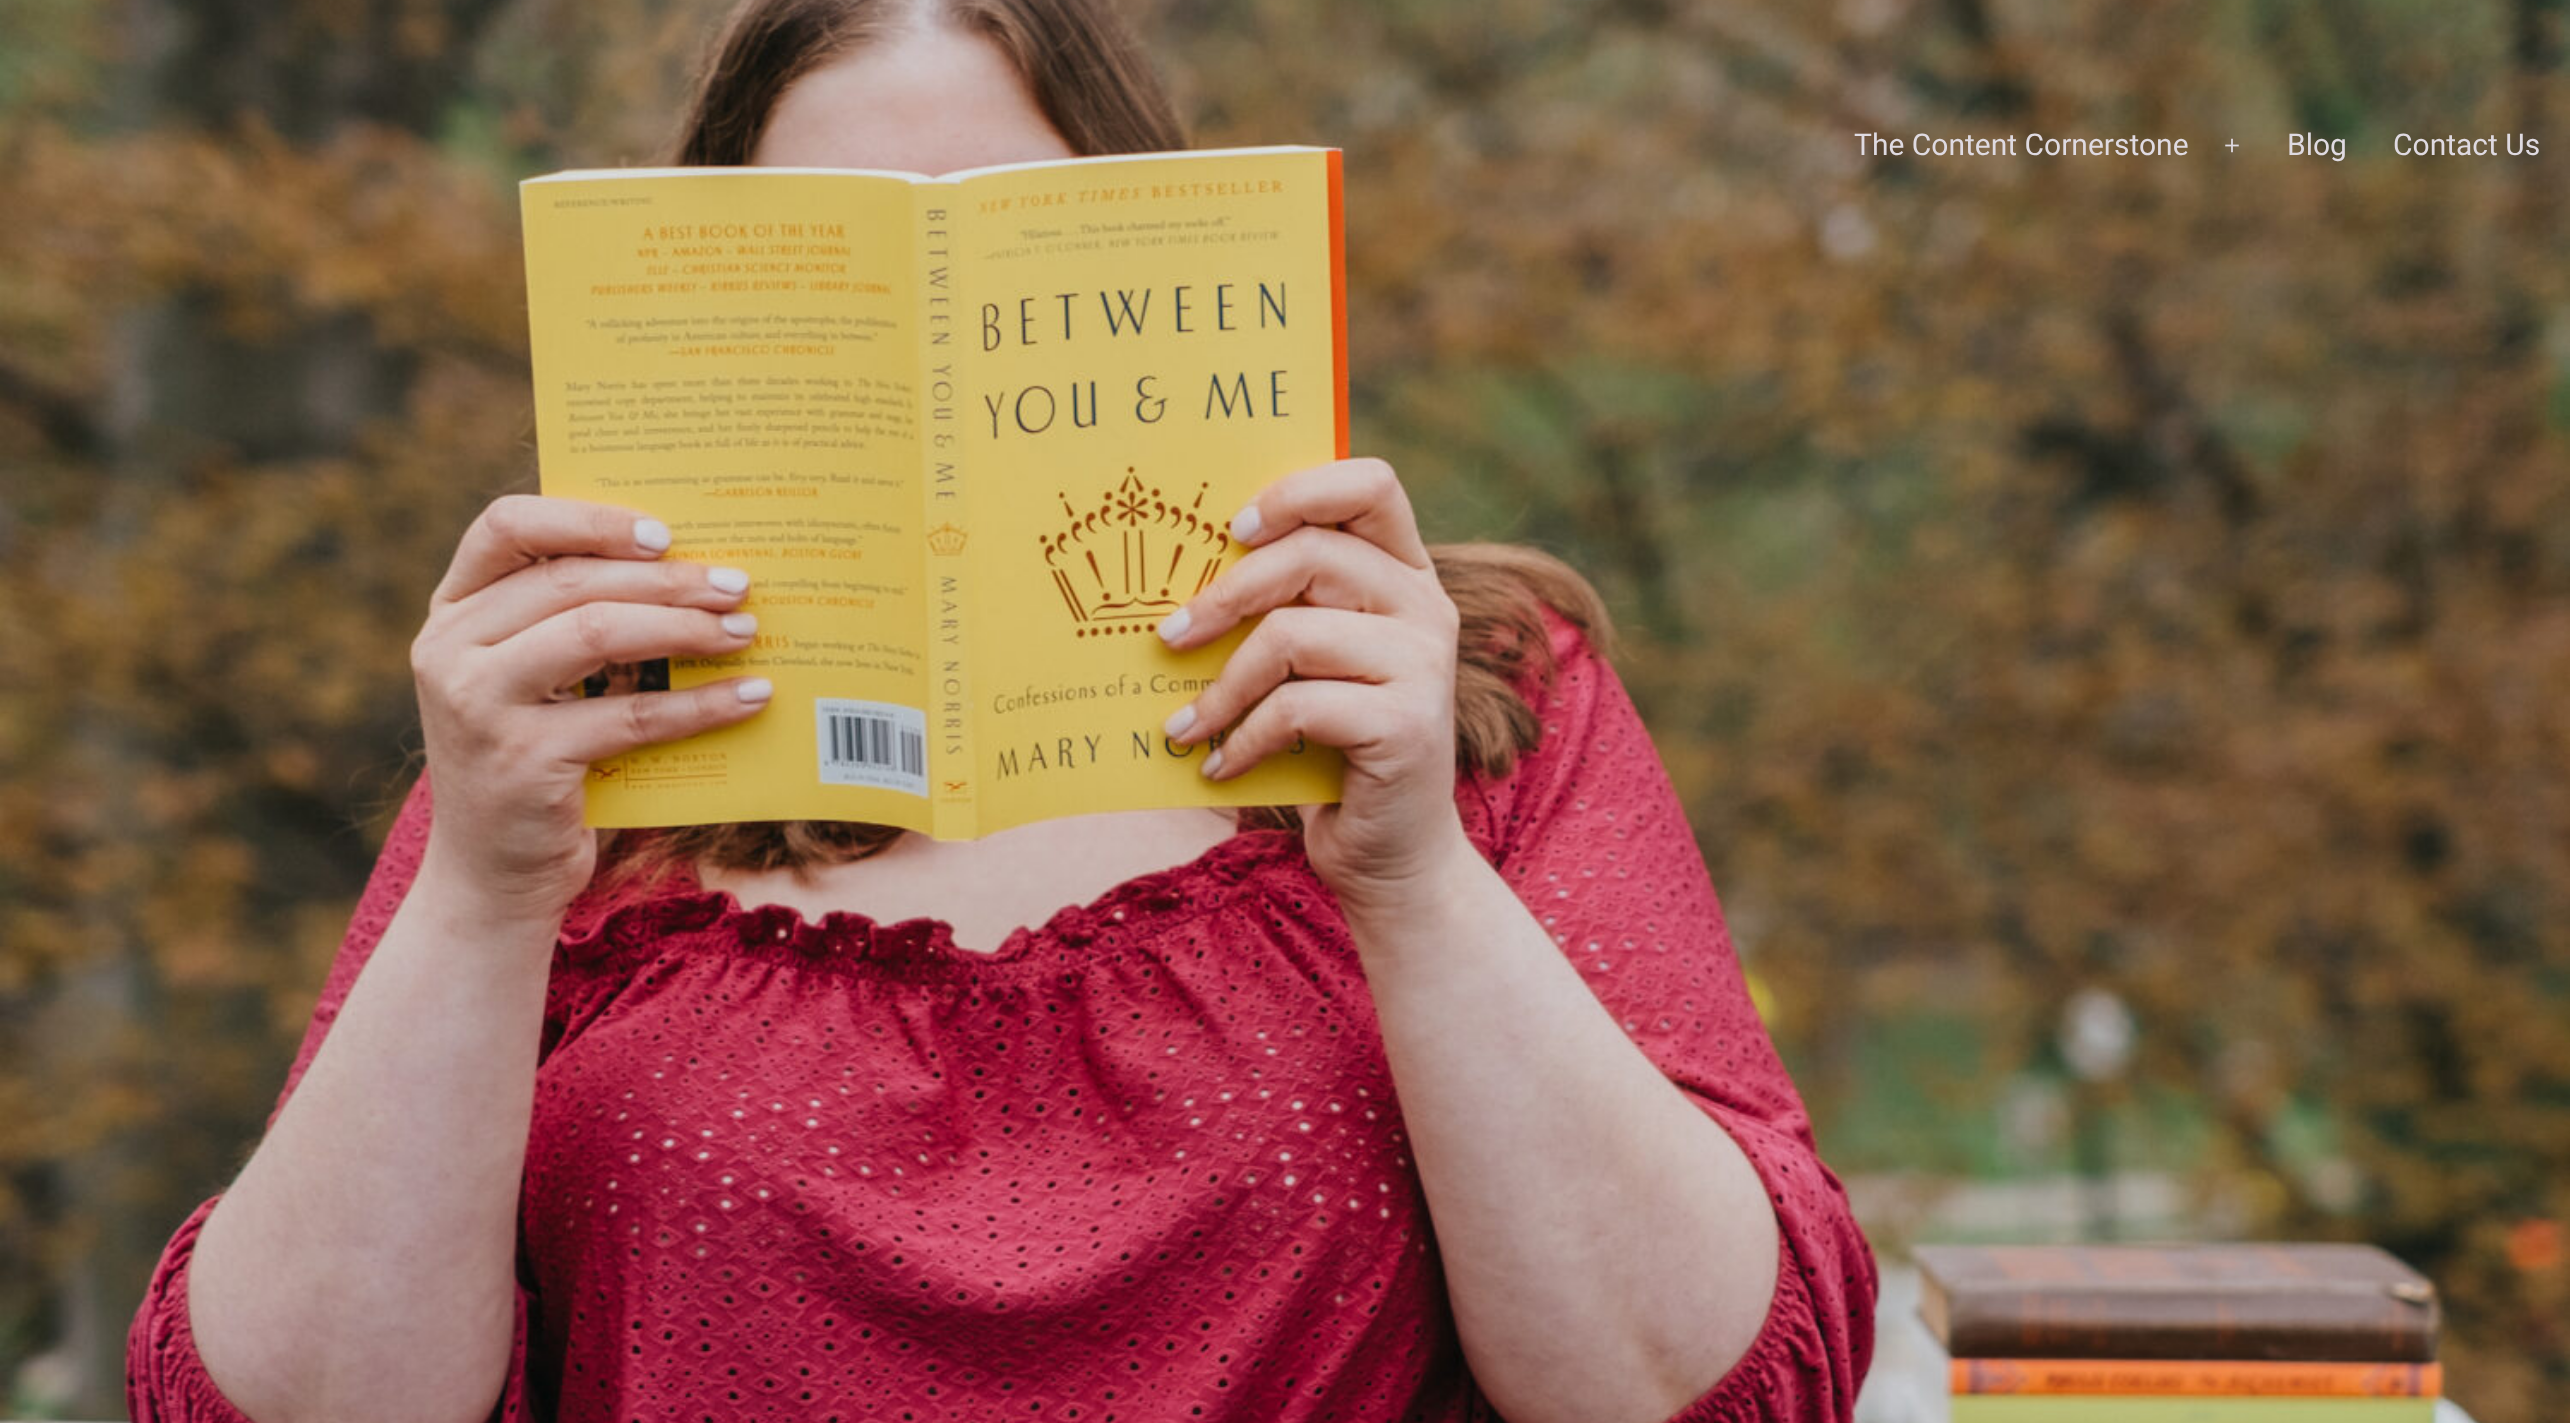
<!DOCTYPE html>
<meta charset="utf-8">
<style>body { margin: 0 } canvas { display: block }</style>
<canvas id="canvas" width="2570" height="1423"></canvas>
<img id="img1" src="img_01.png" hidden>
<img id="img2" src="img_02.png" hidden>
<script>
window.onload = function () {
	const canvas = document.getElementById("canvas");
	const ctx = canvas.getContext("2d");
	ctx.miterLimit = 4;
	ctx.fontKerning = "normal";
	function txt(s, x, y) {
		ctx.fillText(s, x, y);
	}
	function fill(x, y, w, h) {
		ctx.fillRect(x, y, w, h);
	}
	function img(id, x, y, w, h) {
		ctx.drawImage(document.getElementById(id), x, y, w, h);
	}

	ctx.fillStyle = "#FFFFFF";
	fill(0, 0, 2570, 1423);
	img("img1", 0, 0, 2570, 1423);
	img("img2", 2225, 138, 14, 15);
	ctx.font = "30px Roboto";
	ctx.fillStyle = "#DFDAE1";
	txt("The Content Cornerstone", 1854, 155);
	txt("Blog", 2287, 155);
	txt("Contact Us", 2393, 155);
};
</script>
